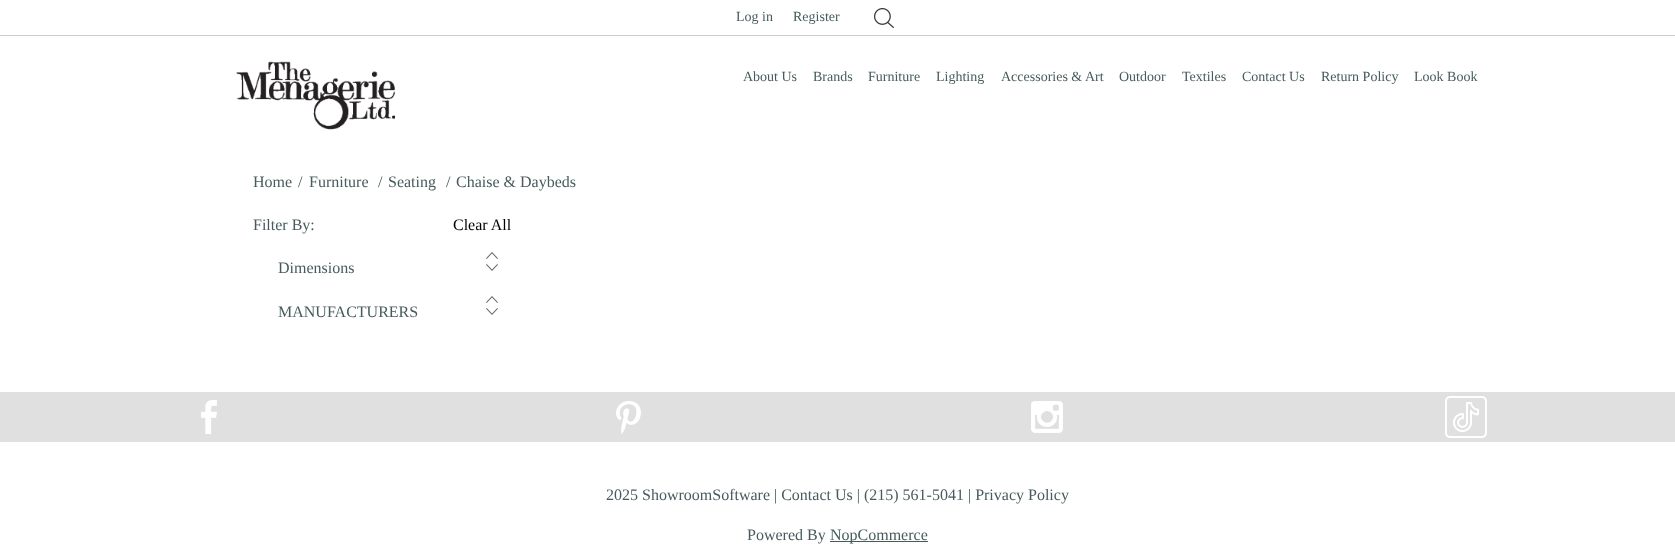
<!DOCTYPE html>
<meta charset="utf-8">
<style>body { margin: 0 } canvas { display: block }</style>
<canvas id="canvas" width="1675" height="546"></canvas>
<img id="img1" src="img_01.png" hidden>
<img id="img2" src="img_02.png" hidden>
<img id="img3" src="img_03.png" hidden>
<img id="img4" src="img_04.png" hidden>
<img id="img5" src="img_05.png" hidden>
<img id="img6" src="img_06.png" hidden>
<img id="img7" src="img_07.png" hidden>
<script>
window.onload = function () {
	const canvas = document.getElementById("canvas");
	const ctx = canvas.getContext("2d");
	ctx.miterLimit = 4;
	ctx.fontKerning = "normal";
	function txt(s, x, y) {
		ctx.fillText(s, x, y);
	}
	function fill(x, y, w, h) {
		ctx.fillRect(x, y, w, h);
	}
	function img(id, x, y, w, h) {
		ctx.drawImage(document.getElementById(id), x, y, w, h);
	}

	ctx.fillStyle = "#FFFFFF";
	fill(0, 0, 1675, 546);
	ctx.fillStyle = "#CCCCCC";
	fill(0, 35, 1675, 1);
	img("img1", 874, 8, 20, 20);
	img("img2", 236, 61, 160, 69);
	img("img3", 486, 252, 12, 19);
	img("img3", 486, 296, 12, 19);
	ctx.fillStyle = "#E0E0E0";
	fill(0, 392, 1675, 50);
	img("img4", 201, 400, 16, 34);
	img("img5", 616, 401, 25, 33);
	img("img6", 1031, 401, 32, 32);
	img("img7", 1445, 396, 42, 42);
	ctx.fillStyle = "#475B5D";
	fill(830, 541, 98, 1);
	ctx.font = "14px Liberation Serif";
	txt("Log in", 736, 21);
	txt("Register", 793, 21);
	txt("About Us", 743, 81);
	txt("Brands", 813, 81);
	txt("Furniture", 868, 81);
	txt("Lighting", 936, 81);
	txt("Accessories & Art", 1001, 81);
	txt("Outdoor", 1119, 81);
	txt("Textiles", 1182, 81);
	txt("Contact Us", 1242, 81);
	txt("Return Policy", 1321, 81);
	txt("Look Book", 1414, 81);
	ctx.font = "16px Liberation Serif";
	txt("Home", 253, 187);
	txt("/", 298, 187);
	txt("Furniture", 309, 187);
	txt("/", 378, 187);
	txt("Seating", 388, 187);
	txt("/", 446, 187);
	txt("Chaise & Daybeds", 456, 187);
	txt("Filter By:", 253, 230);
	ctx.fillStyle = "#000000";
	txt("Clear All", 453, 230);
	ctx.fillStyle = "#475B5D";
	txt("Dimensions", 278, 273);
	txt("MANUFACTURERS", 278, 317);
	txt("2025 ShowroomSoftware | Contact Us | (215) 561-5041 | Privacy Policy", 606, 500);
	txt("Powered By", 747, 540);
	txt("NopCommerce", 830, 540);
};
</script>
